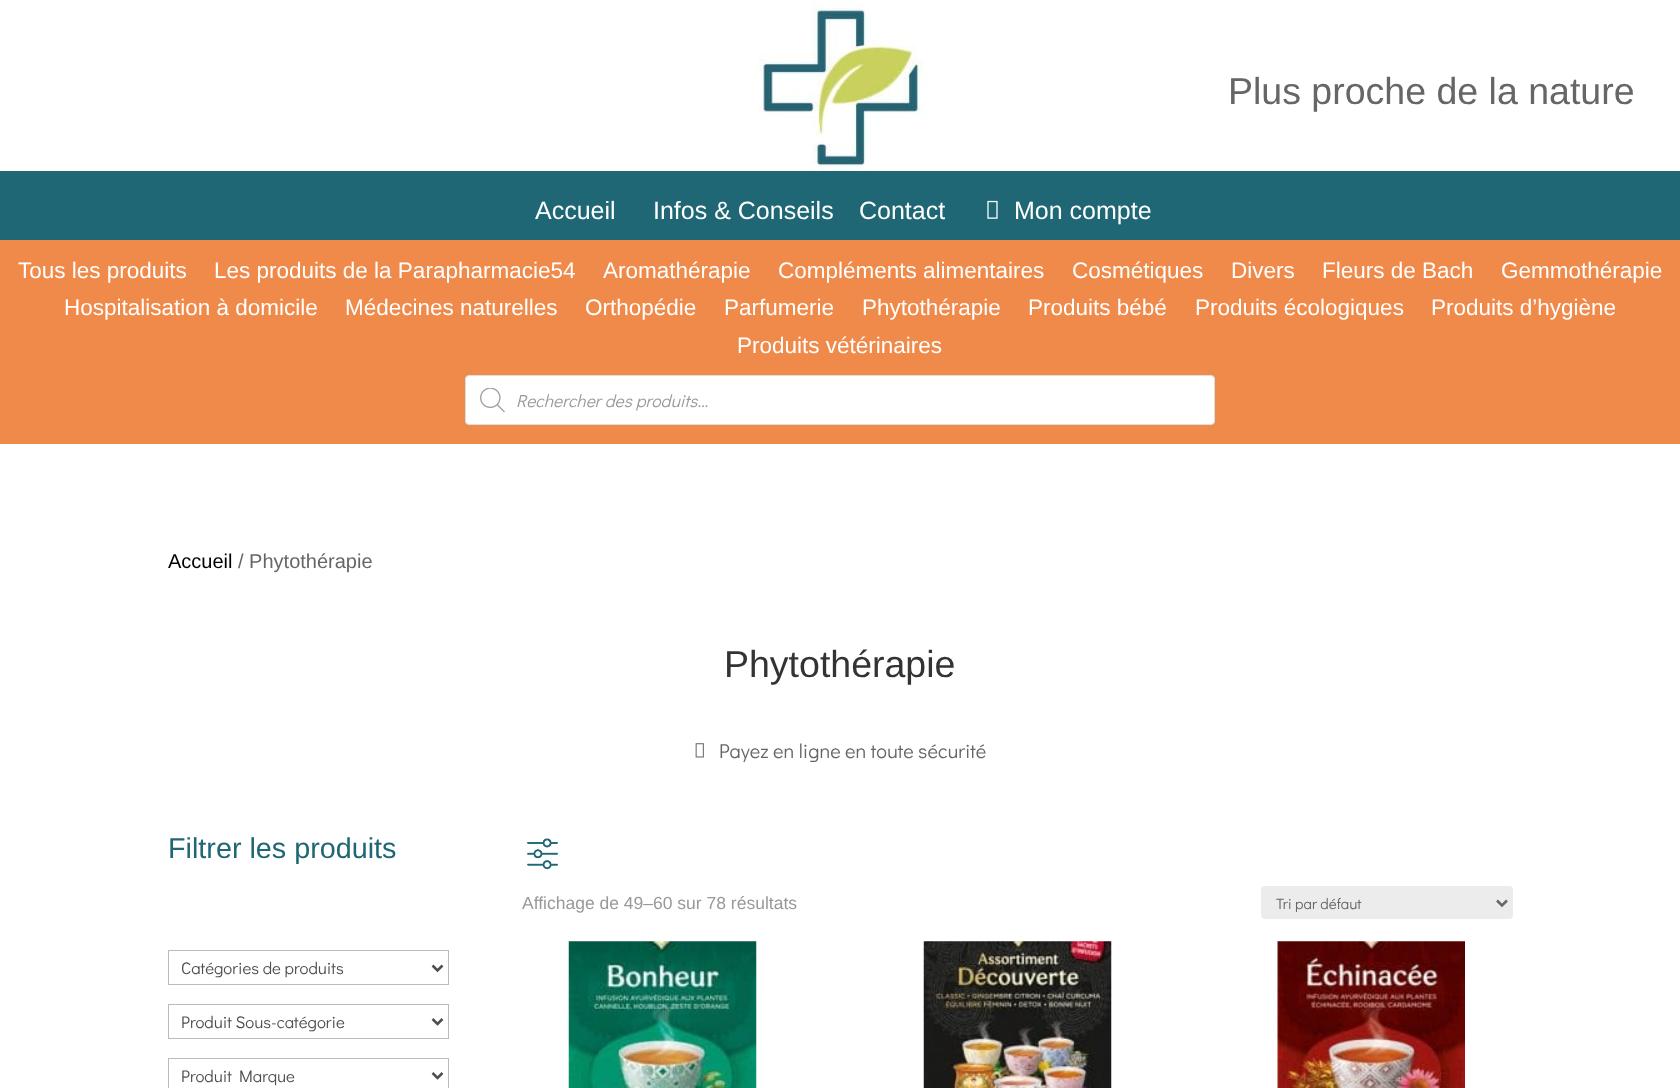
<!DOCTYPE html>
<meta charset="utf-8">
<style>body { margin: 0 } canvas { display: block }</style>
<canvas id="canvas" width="1680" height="1088"></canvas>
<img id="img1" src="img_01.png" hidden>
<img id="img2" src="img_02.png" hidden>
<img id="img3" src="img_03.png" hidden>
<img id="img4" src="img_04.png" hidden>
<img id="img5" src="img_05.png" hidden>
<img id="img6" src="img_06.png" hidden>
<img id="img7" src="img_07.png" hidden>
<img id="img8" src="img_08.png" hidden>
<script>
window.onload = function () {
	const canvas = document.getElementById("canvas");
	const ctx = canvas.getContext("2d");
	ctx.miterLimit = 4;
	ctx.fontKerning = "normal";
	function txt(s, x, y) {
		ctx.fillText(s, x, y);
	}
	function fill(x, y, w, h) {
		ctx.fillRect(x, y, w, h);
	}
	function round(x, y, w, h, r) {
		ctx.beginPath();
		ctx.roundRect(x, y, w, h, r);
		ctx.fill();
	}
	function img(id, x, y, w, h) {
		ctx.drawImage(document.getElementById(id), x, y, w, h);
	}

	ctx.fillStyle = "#FFFFFF";
	fill(0, 0, 1680, 1088);
	img("img1", 746, 0, 188, 171);
	ctx.fillStyle = "#1F6775";
	fill(0, 171, 1680, 69);
	img("img2", 987, 200, 11, 19);
	ctx.fillStyle = "#F08A4A";
	fill(0, 240, 1680, 204);
	ctx.fillStyle = "#FFFFFF";
	ctx.beginPath();
	ctx.roundRect(465.5, 375.5, 749, 49, 3.5);
	ctx.fill();
	ctx.strokeStyle = "#DDDDDD";
	ctx.stroke();
	img("img3", 480, 388, 25, 25);
	img("img4", 695, 743, 9, 15);
	ctx.strokeStyle = "#BBBBBB";
	ctx.strokeRect(168.5, 950.5, 280, 34);
	ctx.beginPath();
	ctx.moveTo(432.5, 965.5);
	ctx.lineTo(437.5, 970.5);
	ctx.lineTo(442.5, 965.5);
	ctx.strokeStyle = "#4E4E4E";
	ctx.lineWidth = 2.5;
	ctx.stroke();
	ctx.strokeStyle = "#BBBBBB";
	ctx.lineWidth = 1;
	ctx.strokeRect(168.5, 1004.5, 280, 34);
	ctx.beginPath();
	ctx.moveTo(432.5, 1019);
	ctx.lineTo(437.5, 1024);
	ctx.lineTo(442.5, 1019);
	ctx.strokeStyle = "#4E4E4E";
	ctx.lineWidth = 2.5;
	ctx.stroke();
	ctx.strokeStyle = "#BBBBBB";
	ctx.lineWidth = 1;
	ctx.strokeRect(168.5, 1058.5, 280, 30);
	ctx.beginPath();
	ctx.moveTo(432.5, 1073);
	ctx.lineTo(437.5, 1078);
	ctx.lineTo(442.5, 1073);
	ctx.strokeStyle = "#4E4E4E";
	ctx.lineWidth = 2.5;
	ctx.stroke();
	img("img5", 527, 838, 31, 32);
	ctx.fillStyle = "#ECECEC";
	round(1261, 886, 252, 33, 4);
	ctx.beginPath();
	ctx.moveTo(1497, 900.5);
	ctx.lineTo(1502, 905.5);
	ctx.lineTo(1507, 900.5);
	ctx.strokeStyle = "#666666";
	ctx.stroke();
	img("img6", 568, 941, 189, 147);
	img("img7", 923, 941, 189, 147);
	img("img8", 1277, 941, 188, 147);
	ctx.font = "37.5px Liberation Sans";
	ctx.fillStyle = "#666666";
	txt("Plus proche de la nature", 1228, 104);
	ctx.font = "25px Liberation Sans";
	ctx.fillStyle = "#FFFFFF";
	txt("Accueil", 535, 219);
	txt("Infos & Conseils", 653, 219);
	txt("Contact", 859, 219);
	txt("Mon compte", 1014, 219);
	ctx.font = "22.5px Liberation Sans";
	txt("Tous les produits", 18, 278);
	txt("Les produits de la Parapharmacie54", 214, 278);
	txt("Aromathérapie", 603, 278);
	txt("Compléments alimentaires", 778, 278);
	txt("Cosmétiques", 1072, 278);
	txt("Divers", 1231, 278);
	txt("Fleurs de Bach", 1322, 278);
	txt("Gemmothérapie", 1501, 278);
	txt("Hospitalisation à domicile", 64, 315);
	txt("Médecines naturelles", 345, 315);
	txt("Orthopédie", 585, 315);
	txt("Parfumerie", 724, 315);
	txt("Phytothérapie", 862, 315);
	txt("Produits bébé", 1028, 315);
	txt("Produits écologiques", 1195, 315);
	txt("Produits d’hygiène", 1431, 315);
	txt("Produits vétérinaires", 737, 353);
	ctx.font = "italic 17.5px Didact Gothic";
	ctx.fillStyle = "#999999";
	txt("Rechercher des produits...", 516, 407);
	ctx.font = "20px Liberation Sans";
	ctx.fillStyle = "#000000";
	txt("Accueil", 168, 568);
	ctx.fillStyle = "#666666";
	txt("/ Phytothérapie", 238, 568);
	ctx.font = "37.5px Liberation Sans";
	ctx.fillStyle = "#333333";
	txt("Phytothérapie", 724, 677);
	ctx.font = "20px Didact Gothic";
	ctx.fillStyle = "#666666";
	txt("Payez en ligne en toute sécurité", 719, 758);
	ctx.font = "28.75px Liberation Sans";
	ctx.fillStyle = "#1F6775";
	txt("Filtrer les produits", 168, 858);
	ctx.font = "16.75px Didact Gothic";
	ctx.fillStyle = "#4E4E4E";
	txt("Catégories de produits", 181, 974);
	txt("Produit Sous-catégorie", 181, 1028);
	txt("Produit Marque", 181, 1082);
	ctx.font = "17.5px Liberation Sans";
	ctx.fillStyle = "#999999";
	txt("Affichage de 49–60 sur 78 résultats", 522, 909);
	ctx.font = "15px Didact Gothic";
	ctx.fillStyle = "#666666";
	txt("Tri par défaut", 1276, 909);
};
</script>
